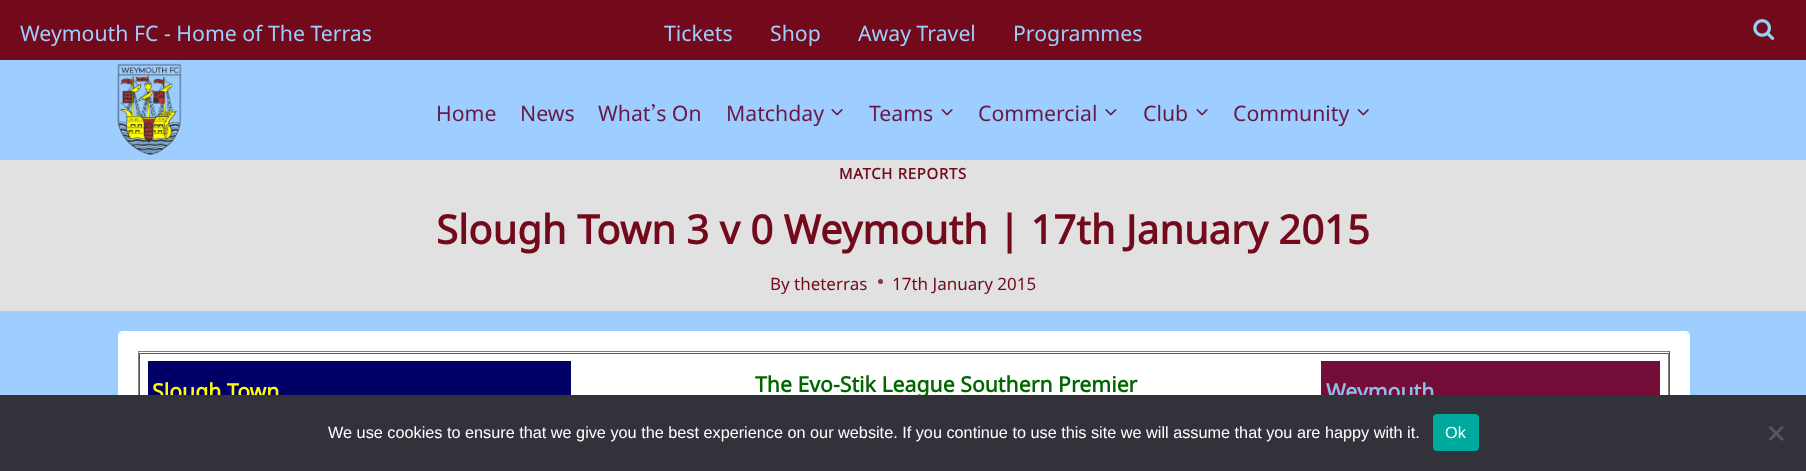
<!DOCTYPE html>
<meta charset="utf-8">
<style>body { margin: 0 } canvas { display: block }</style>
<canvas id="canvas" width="1806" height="471"></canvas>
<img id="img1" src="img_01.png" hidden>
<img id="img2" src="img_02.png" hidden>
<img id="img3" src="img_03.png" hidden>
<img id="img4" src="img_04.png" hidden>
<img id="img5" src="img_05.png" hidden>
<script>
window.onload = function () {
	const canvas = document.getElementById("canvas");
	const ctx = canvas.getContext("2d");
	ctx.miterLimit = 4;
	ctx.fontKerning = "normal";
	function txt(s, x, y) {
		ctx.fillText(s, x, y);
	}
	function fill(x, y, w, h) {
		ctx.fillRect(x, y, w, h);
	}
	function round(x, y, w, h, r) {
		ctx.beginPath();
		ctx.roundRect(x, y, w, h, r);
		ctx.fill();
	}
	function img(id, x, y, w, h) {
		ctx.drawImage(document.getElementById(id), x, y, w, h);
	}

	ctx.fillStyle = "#9DCEFF";
	fill(0, 0, 1806, 471);
	ctx.fillStyle = "#730A1B";
	fill(0, 0, 1806, 60);
	img("img1", 1753, 19, 22, 21);
	img("img2", 117, 63, 65, 92);
	img("img3", 831, 109, 12, 7);
	img("img3", 941, 109, 12, 7);
	img("img4", 1105, 109, 12, 7);
	img("img3", 1196, 109, 12, 7);
	img("img5", 1357, 109, 12, 7);
	ctx.fillStyle = "#E1E1E1";
	fill(0, 160, 1806, 151);
	ctx.fillStyle = "#893543";
	ctx.beginPath();
	ctx.arc(880.5, 281.5, 2.5, 0, Math.PI * 2);
	ctx.fill();
	ctx.fillStyle = "#FFFFFF";
	ctx.beginPath();
	ctx.moveTo(123, 331);
	ctx.lineTo(1685, 331);
	ctx.bezierCurveTo(1688, 331, 1690, 333, 1690, 336);
	ctx.lineTo(1690, 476);
	ctx.lineTo(118, 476);
	ctx.lineTo(118, 336);
	ctx.bezierCurveTo(118, 333, 120, 331, 123, 331);
	ctx.closePath();
	ctx.fill();
	ctx.fillStyle = "#808080";
	fill(138, 351, 1532, 1);
	ctx.fillStyle = "#555555";
	fill(1669, 351, 1, 44);
	ctx.fillStyle = "#808080";
	fill(138, 351, 1, 44);
	ctx.fillStyle = "#555555";
	fill(139, 353, 1530, 1);
	ctx.fillStyle = "#808080";
	fill(1668, 353, 1, 42);
	ctx.fillStyle = "#555555";
	fill(139, 353, 1, 42);
	ctx.fillStyle = "#000066";
	fill(148, 361, 423, 34);
	ctx.fillStyle = "#740D37";
	fill(1321, 361, 339, 34);
	ctx.font = "21.25px Noto Sans Mongolian";
	ctx.fillStyle = "#9DCEFF";
	txt("Weymouth FC - Home of The Terras", 20, 41);
	txt("Tickets", 664, 41);
	txt("Shop", 770, 41);
	txt("Away Travel", 858, 41);
	txt("Programmes", 1013, 41);
	ctx.fillStyle = "#681946";
	txt("Home", 436, 121);
	txt("News", 520, 121);
	txt("What’s On", 598, 121);
	txt("Matchday", 726, 121);
	txt("Teams", 869, 121);
	txt("Commercial", 978, 121);
	txt("Club", 1143, 121);
	txt("Community", 1233, 121);
	ctx.letterSpacing = "0.75px";
	ctx.font = "bold 14.9px Noto Sans Mongolian";
	ctx.fillStyle = "#730A1B";
	txt("MATCH REPORTS", 839, 179);
	ctx.letterSpacing = "0px";
	ctx.font = "bold 40px Noto Sans Mongolian";
	txt("Slough Town 3 v 0 Weymouth | 17th January 2015", 436, 244);
	ctx.font = "17px Noto Sans Mongolian";
	txt("By", 770, 290);
	txt("theterras", 794, 290);
	txt("17th January 2015", 892, 290);
	ctx.font = "bold 21.25px Noto Sans Mongolian";
	ctx.fillStyle = "#FFFF00";
	txt("Slough Town", 152, 399);
	ctx.fillStyle = "#006600";
	txt("The Evo-Stik League Southern Premier", 755, 392);
	ctx.fillStyle = "#8AC0EC";
	txt("Weymouth", 1326, 399);
	ctx.fillStyle = "#32323A";
	fill(0, 395, 1806, 76);
	ctx.font = "16.25px Liberation Sans";
	ctx.fillStyle = "#FFFFFF";
	txt("We use cookies to ensure that we give you the best experience on our website. If you continue to use this site we will assume that you are happy with it.", 328, 438);
	ctx.fillStyle = "#00A99D";
	round(1433, 414, 46, 37, 4);
	ctx.fillStyle = "#FFFFFF";
	txt("Ok", 1445, 438);
	ctx.fillStyle = "#59595D";
	ctx.beginPath();
	ctx.moveTo(1782, 426);
	ctx.lineTo(1784, 427.5);
	ctx.lineTo(1770.5, 441);
	ctx.lineTo(1768.5, 439);
	ctx.closePath();
	ctx.fill();
	ctx.beginPath();
	ctx.moveTo(1768.5, 427.5);
	ctx.lineTo(1770.5, 426);
	ctx.lineTo(1784, 439);
	ctx.lineTo(1782, 441);
	ctx.closePath();
	ctx.fill();
};
</script>
